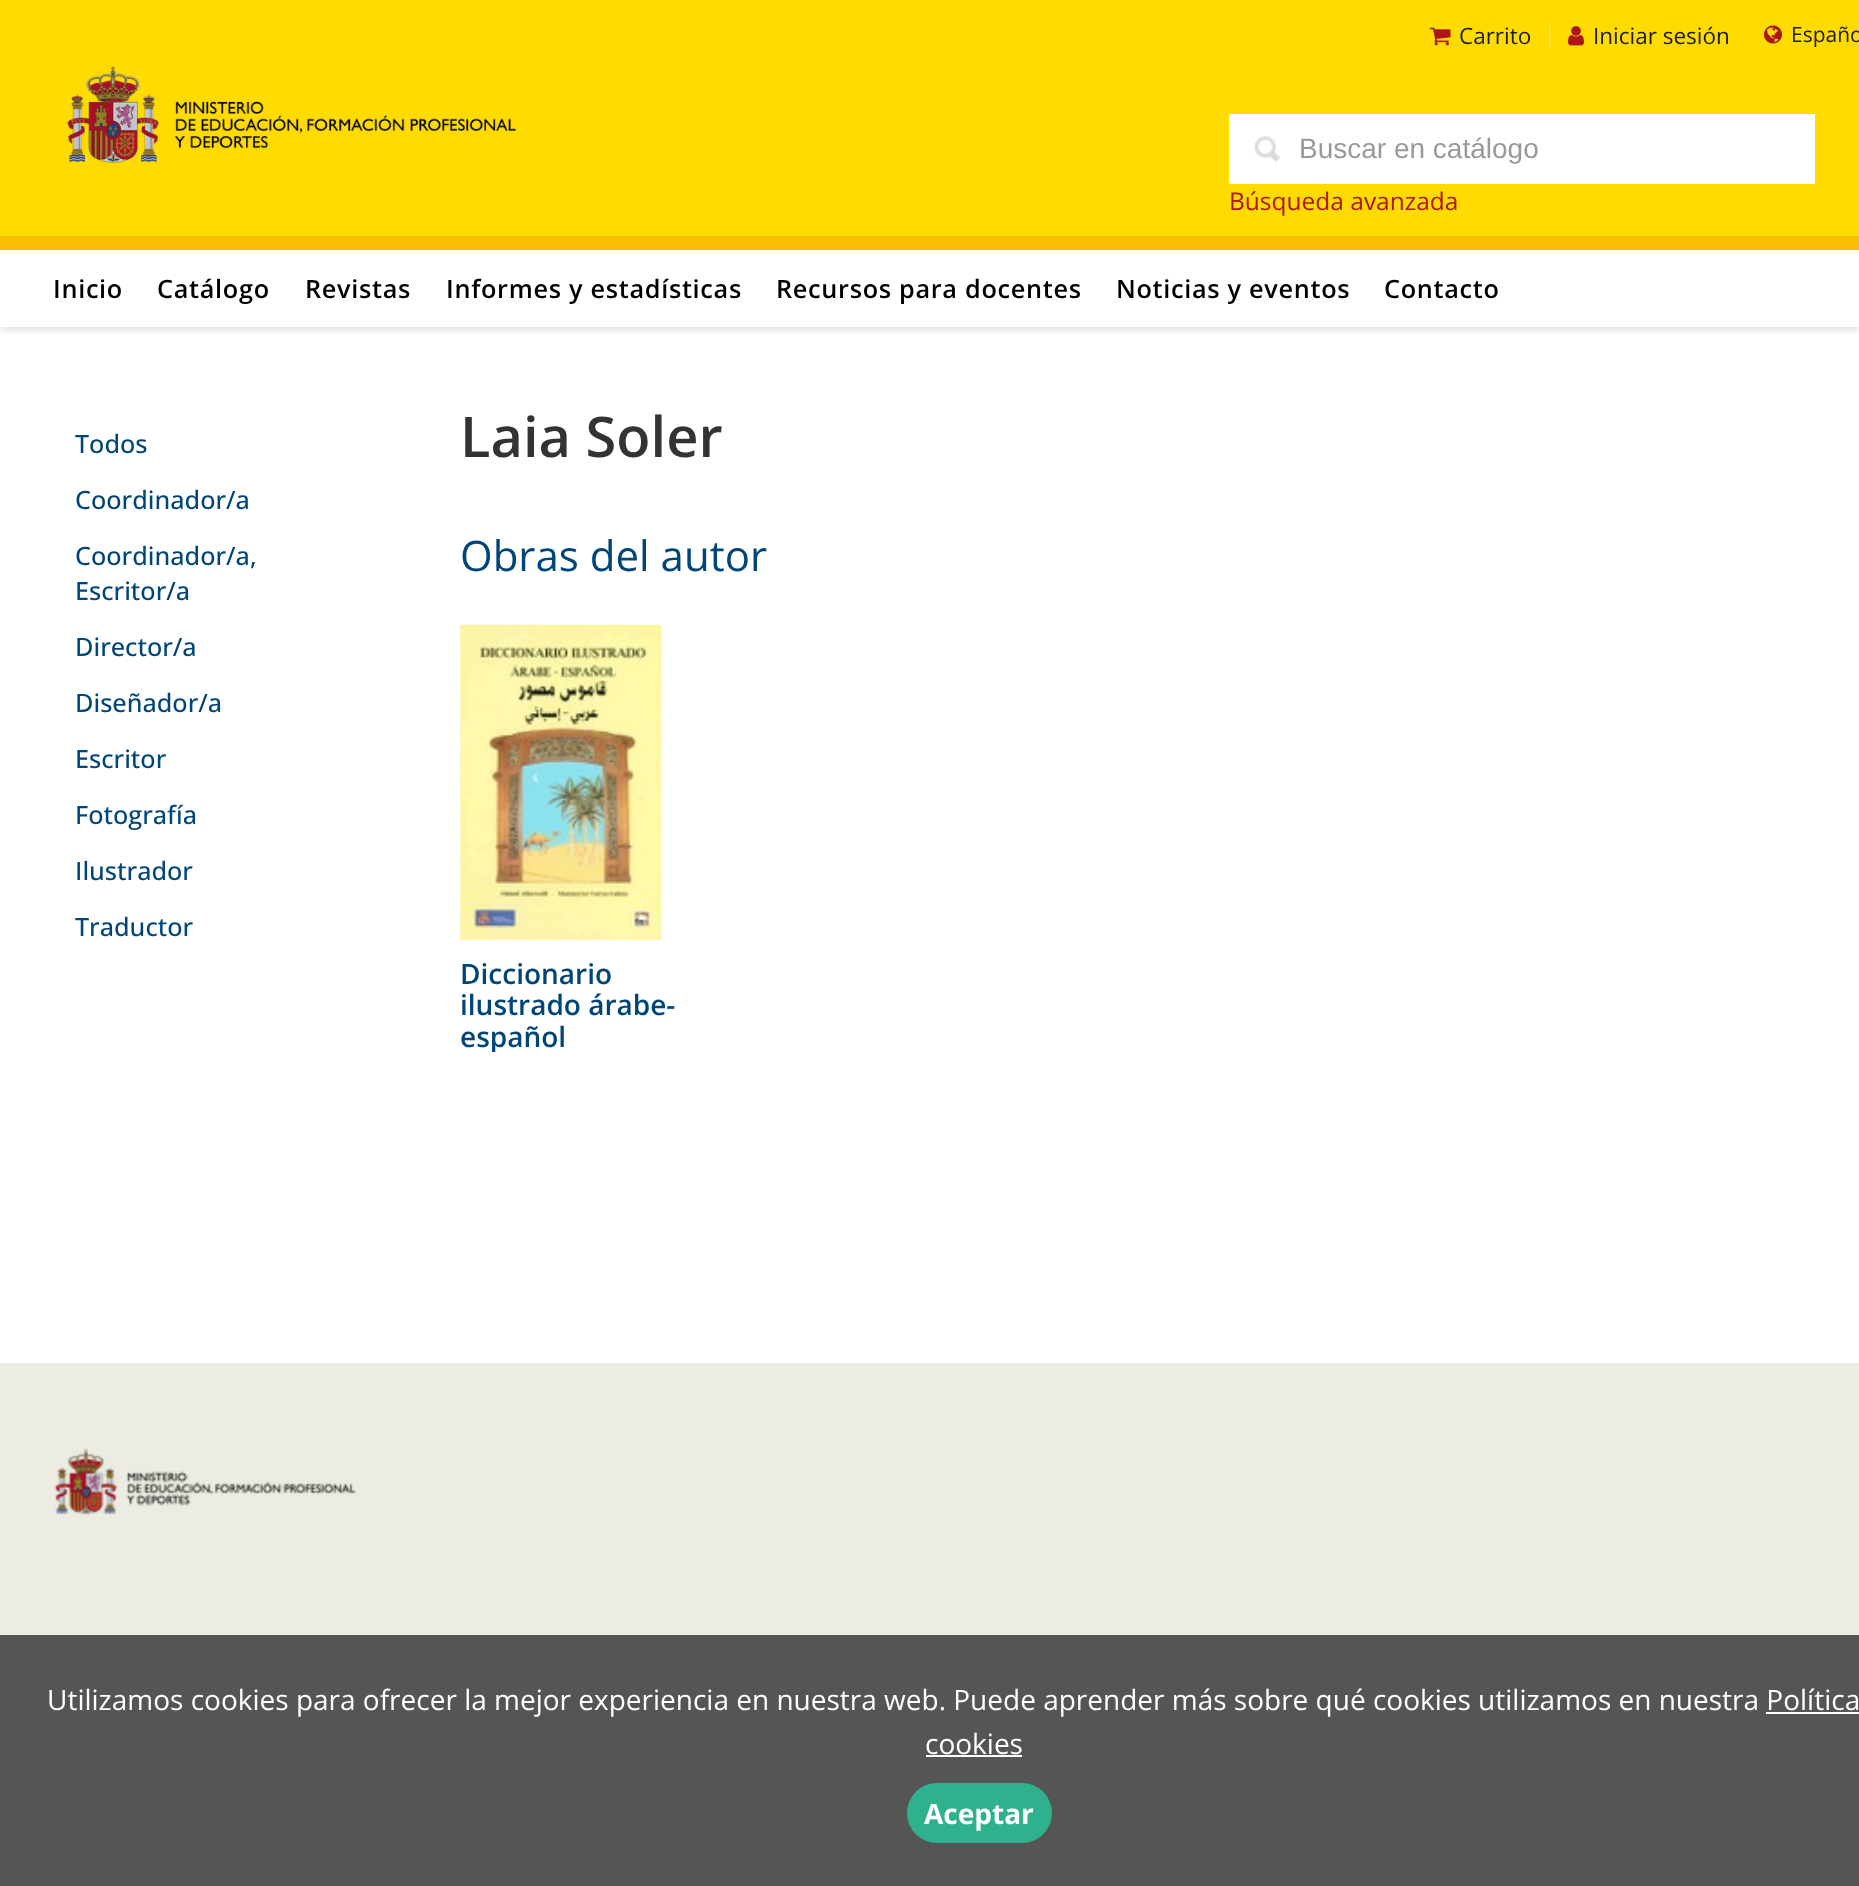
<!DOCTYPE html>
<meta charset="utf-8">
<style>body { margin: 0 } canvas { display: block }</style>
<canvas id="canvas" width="1859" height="1886"></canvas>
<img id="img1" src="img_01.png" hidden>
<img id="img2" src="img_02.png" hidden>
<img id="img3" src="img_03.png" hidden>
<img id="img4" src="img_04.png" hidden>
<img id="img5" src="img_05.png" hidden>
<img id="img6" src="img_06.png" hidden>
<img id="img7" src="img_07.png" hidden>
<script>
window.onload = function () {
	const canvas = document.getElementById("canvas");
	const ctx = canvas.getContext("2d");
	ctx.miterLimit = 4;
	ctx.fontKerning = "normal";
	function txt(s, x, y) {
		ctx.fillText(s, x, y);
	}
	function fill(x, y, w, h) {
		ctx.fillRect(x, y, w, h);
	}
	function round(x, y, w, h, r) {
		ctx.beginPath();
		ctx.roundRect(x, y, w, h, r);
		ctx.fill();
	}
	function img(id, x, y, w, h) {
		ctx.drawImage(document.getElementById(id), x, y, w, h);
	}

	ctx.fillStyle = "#FFFFFF";
	fill(0, 0, 1859, 1886);
	ctx.save();
	ctx.beginPath();
	ctx.rect(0, 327, 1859, 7);
	ctx.clip();
	ctx.fillStyle = "rgba(0, 0, 0, 0.1)";
	ctx.filter = "blur(3.5px)";
	ctx.beginPath();
	ctx.rect(0, 4, 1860, 327);
	ctx.fill();
	ctx.filter = "none";
	ctx.restore();
	ctx.fillStyle = "#FFDB00";
	fill(0, 0, 1859, 236);
	img("img1", 1429, 27, 22, 19);
	ctx.fillStyle = "#FFE233";
	fill(1549, 26, 2, 23);
	img("img2", 1568, 26, 16, 20);
	img("img3", 1764, 25, 18, 19);
	img("img4", 67, 66, 449, 97);
	ctx.fillStyle = "#FFFFFF";
	fill(1229, 114, 586, 70);
	img("img5", 1254, 136, 26, 26);
	ctx.fillStyle = "#FABD00";
	fill(0, 236, 1859, 14);
	img("img6", 460, 624, 202, 316);
	ctx.fillStyle = "#ECECE2";
	fill(0, 1363, 1859, 272);
	img("img7", 54, 1448, 302, 67);
	ctx.fillStyle = "#555555";
	fill(0, 1635, 1859, 251);
	ctx.fillStyle = "#FFFFFF";
	fill(1766, 1712, 93, 2);
	fill(926, 1755, 96, 2);
	ctx.fillStyle = "#2FB18D";
	round(907, 1783, 145, 60, 30);
	ctx.font = "22.5px Open Sans";
	ctx.fillStyle = "#1D1D1B";
	txt("Carrito", 1459, 44);
	txt("Iniciar sesión", 1593, 44);
	ctx.font = "21px Open Sans";
	txt("Españo", 1791, 42);
	ctx.font = "28px Liberation Sans";
	ctx.fillStyle = "#999999";
	txt("Buscar en catálogo", 1299, 158);
	ctx.font = "24.5px Open Sans";
	ctx.fillStyle = "#AD1519";
	txt("Búsqueda avanzada", 1229, 210);
	ctx.letterSpacing = "0.7px";
	ctx.font = "600 25.25px Open Sans";
	ctx.fillStyle = "#000000";
	txt("Inicio", 53, 298);
	txt("Catálogo", 157, 298);
	txt("Revistas", 305, 298);
	txt("Informes y estadísticas", 446, 298);
	txt("Recursos para docentes", 776, 298);
	txt("Noticias y eventos", 1116, 298);
	txt("Contacto", 1384, 298);
	ctx.letterSpacing = "0px";
	ctx.font = "500 25.25px Open Sans";
	ctx.fillStyle = "#004578";
	txt("Todos", 75, 453);
	txt("Coordinador/a", 75, 509);
	txt("Coordinador/a,", 75, 565);
	txt("Escritor/a", 75, 600);
	txt("Director/a", 75, 656);
	txt("Diseñador/a", 75, 712);
	txt("Escritor", 75, 768);
	txt("Fotografía", 75, 824);
	txt("Ilustrador", 75, 880);
	txt("Traductor", 75, 936);
	ctx.font = "600 56px Open Sans";
	ctx.fillStyle = "#333333";
	txt("Laia Soler", 460, 457);
	ctx.font = "42px Open Sans";
	ctx.fillStyle = "#004578";
	txt("Obras del autor", 460, 571);
	ctx.font = "600 28px Open Sans";
	txt("Diccionario", 460, 984);
	txt("ilustrado árabe-", 460, 1015);
	ctx.save();
	ctx.beginPath();
	ctx.rect(460, 957, 247, 95);
	ctx.clip();
	txt("español", 460, 1047);
	ctx.restore();
	ctx.font = "28px Open Sans";
	ctx.fillStyle = "#FFFFFF";
	txt("Utilizamos cookies para ofrecer la mejor experiencia en nuestra web. Puede aprender más sobre qué cookies utilizamos en nuestra Política", 47, 1710);
	txt("cookies", 925, 1754);
	ctx.font = "bold 28px Open Sans";
	txt("Aceptar", 924, 1824);
};
</script>
